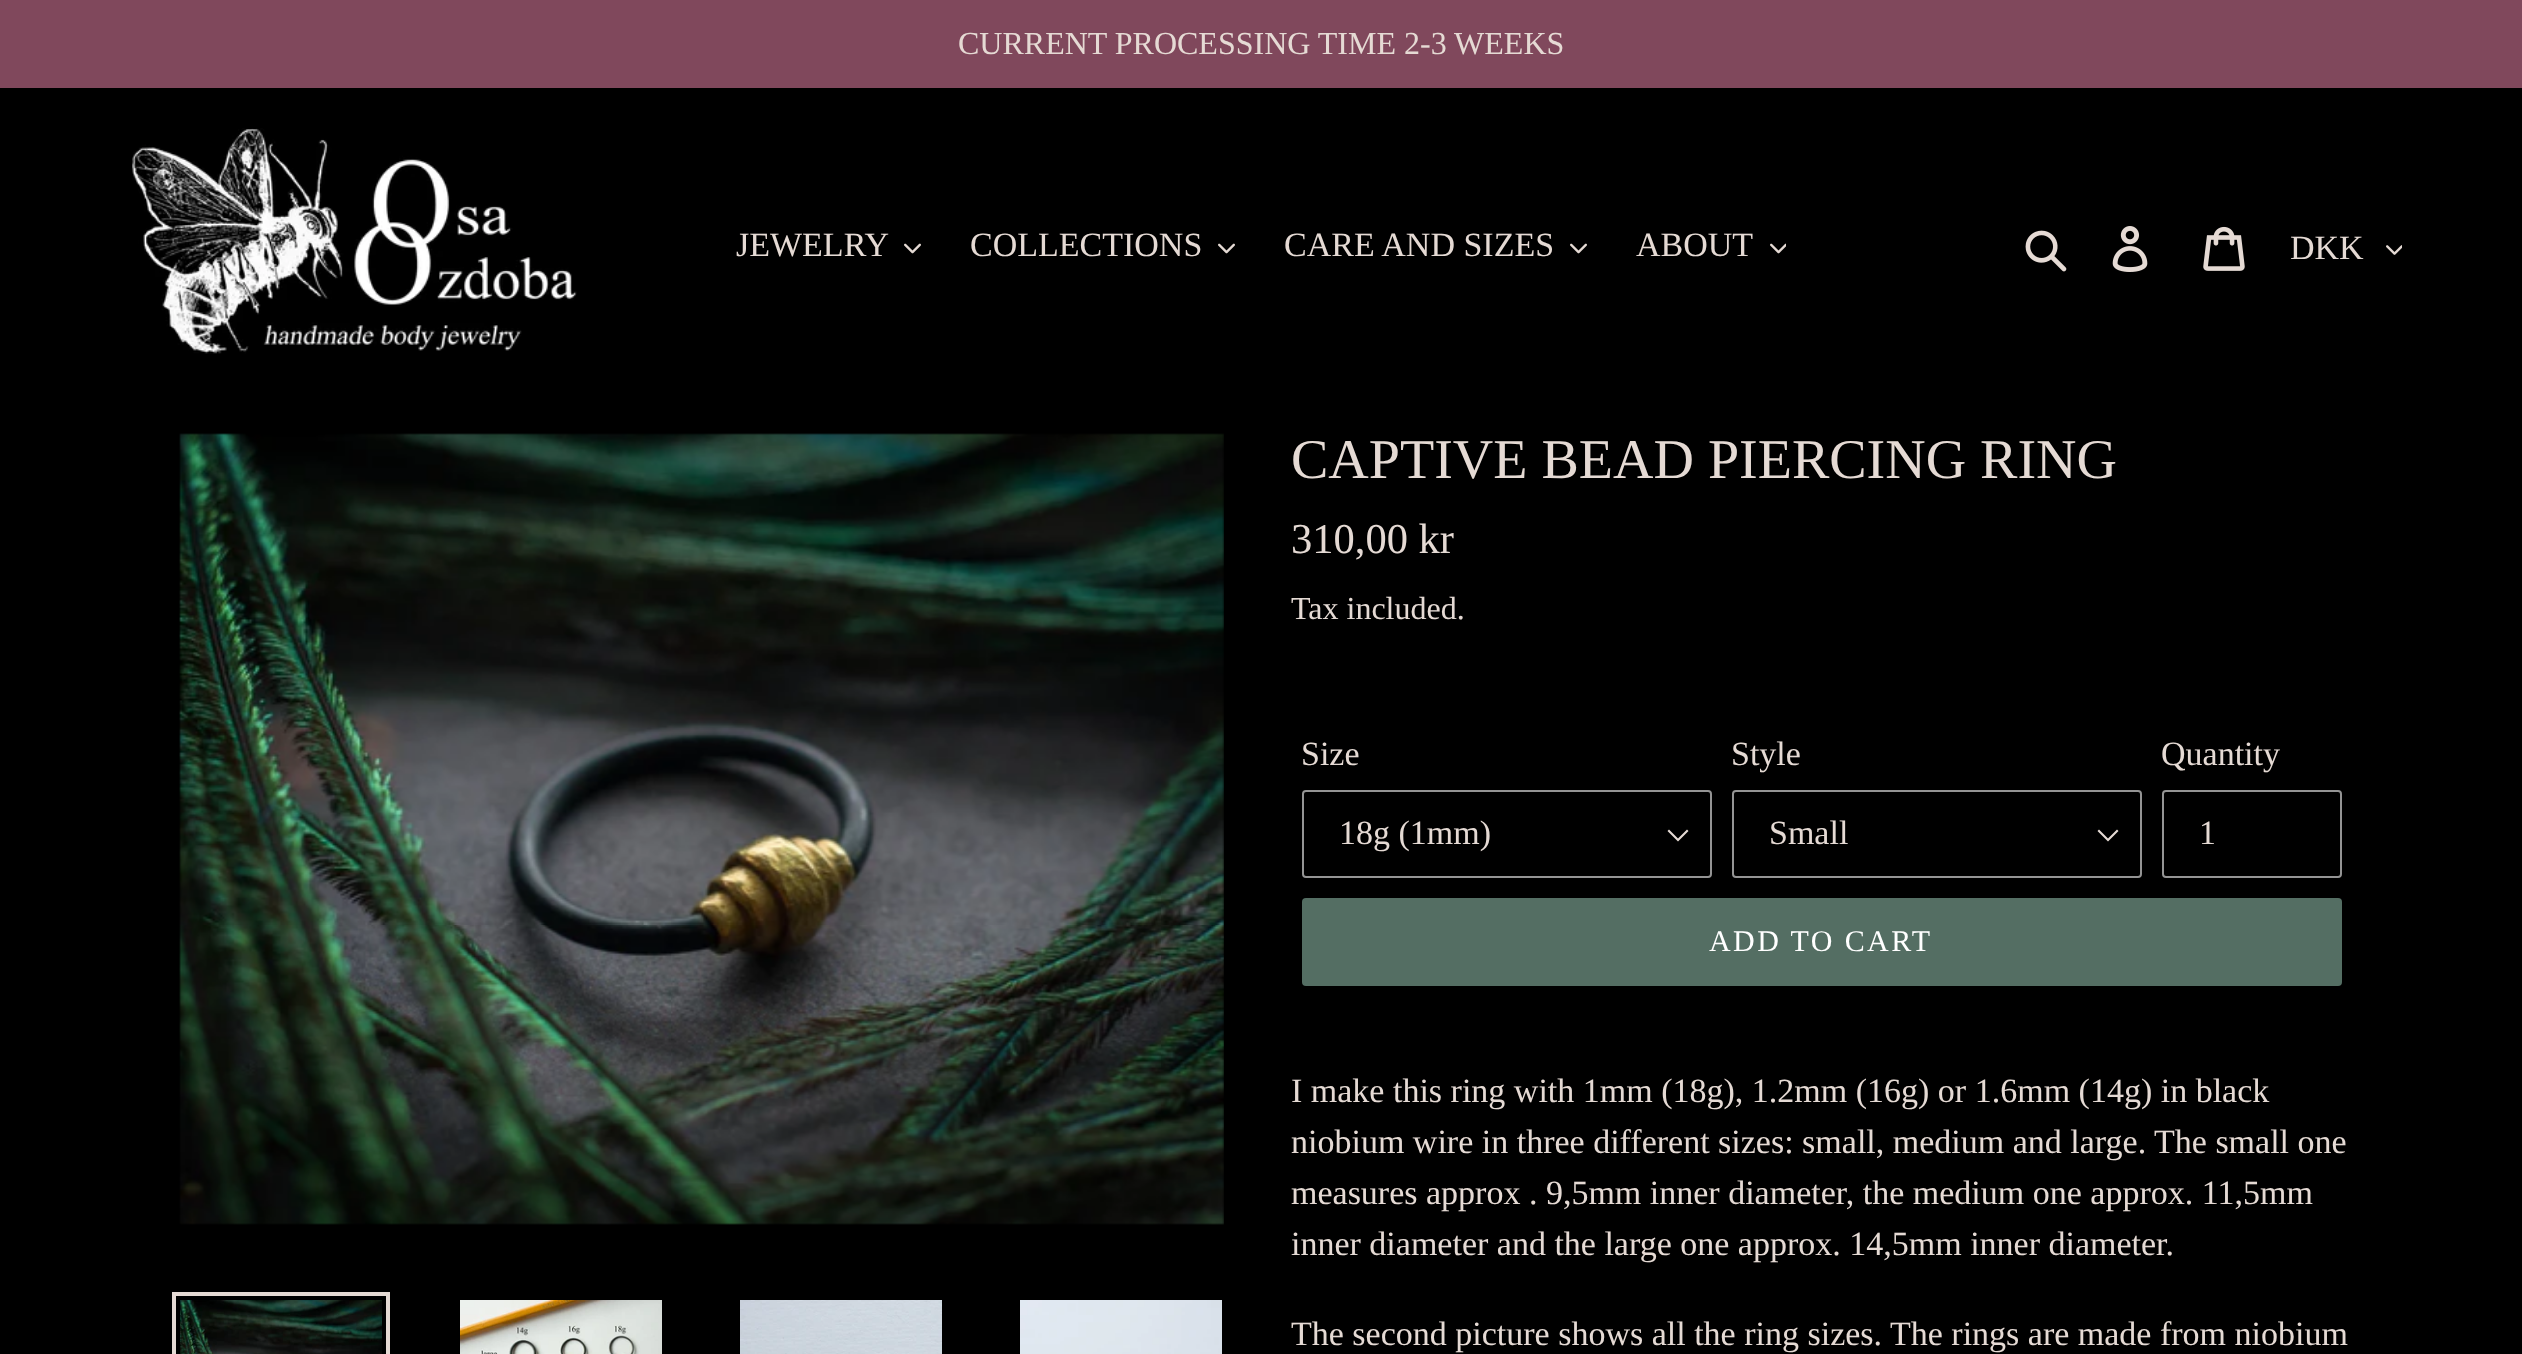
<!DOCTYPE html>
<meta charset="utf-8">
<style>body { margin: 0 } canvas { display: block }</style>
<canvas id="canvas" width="2522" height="1354"></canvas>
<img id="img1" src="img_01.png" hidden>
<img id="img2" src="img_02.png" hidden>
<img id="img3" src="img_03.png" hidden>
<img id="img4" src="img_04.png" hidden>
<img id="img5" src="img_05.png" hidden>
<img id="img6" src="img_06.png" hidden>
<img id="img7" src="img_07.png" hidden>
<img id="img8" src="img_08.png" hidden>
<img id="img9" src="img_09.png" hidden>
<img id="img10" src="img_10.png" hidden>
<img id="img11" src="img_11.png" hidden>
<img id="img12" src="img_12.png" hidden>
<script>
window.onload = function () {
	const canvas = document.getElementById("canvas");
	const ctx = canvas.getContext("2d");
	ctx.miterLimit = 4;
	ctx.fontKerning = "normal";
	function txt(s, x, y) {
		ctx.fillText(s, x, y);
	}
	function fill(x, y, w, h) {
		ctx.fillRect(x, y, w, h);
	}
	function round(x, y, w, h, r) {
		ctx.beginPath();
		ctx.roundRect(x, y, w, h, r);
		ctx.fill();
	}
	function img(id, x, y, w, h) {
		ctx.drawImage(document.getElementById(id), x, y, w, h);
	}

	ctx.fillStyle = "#000000";
	fill(0, 0, 2522, 1354);
	ctx.fillStyle = "#80485C";
	fill(0, 0, 2522, 88);
	img("img1", 132, 128, 445, 226);
	img("img2", 904, 243, 17, 11);
	img("img2", 1218, 243, 17, 11);
	img("img2", 1570, 243, 17, 11);
	img("img3", 1770, 243, 16, 11);
	img("img4", 2025, 230, 42, 42);
	img("img5", 2112, 226, 36, 46);
	img("img6", 2203, 226, 42, 45);
	img("img7", 2386, 245, 16, 10);
	img("img8", 179, 433, 1045, 792);
	ctx.strokeStyle = "#E5DAD4";
	ctx.lineWidth = 4;
	ctx.strokeRect(174, 1294, 214, 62);
	img("img9", 180, 1300, 202, 54);
	img("img10", 460, 1300, 202, 54);
	img("img11", 740, 1300, 202, 54);
	img("img12", 1020, 1300, 202, 54);
	ctx.fillStyle = "#E5DAD4";
	ctx.beginPath();
	ctx.moveTo(1678, 841.5);
	ctx.lineTo(1667.5, 831);
	ctx.lineTo(1669, 829.5);
	ctx.lineTo(1678, 838.5);
	ctx.lineTo(1687, 829.5);
	ctx.lineTo(1688.5, 831);
	ctx.closePath();
	ctx.fill();
	ctx.beginPath();
	ctx.roundRect(1303, 791, 408, 86, 3);
	ctx.strokeStyle = "#949494";
	ctx.lineWidth = 2;
	ctx.stroke();
	ctx.beginPath();
	ctx.moveTo(2108, 841.5);
	ctx.lineTo(2097.5, 831);
	ctx.lineTo(2099, 829.5);
	ctx.lineTo(2108, 838.5);
	ctx.lineTo(2117, 829.5);
	ctx.lineTo(2118.5, 831);
	ctx.closePath();
	ctx.fill();
	ctx.beginPath();
	ctx.roundRect(1733, 791, 408, 86, 3);
	ctx.stroke();
	ctx.beginPath();
	ctx.roundRect(2163, 791, 178, 86, 3);
	ctx.stroke();
	ctx.fillStyle = "#546E63";
	round(1302, 898, 1040, 88, 4);
	ctx.font = "32px Liberation Serif";
	ctx.fillStyle = "#E5DAD4";
	txt("CURRENT PROCESSING TIME 2-3 WEEKS", 958, 54);
	ctx.font = "34px Liberation Serif";
	txt("JEWELRY", 736, 256);
	txt("COLLECTIONS", 970, 256);
	txt("CARE AND SIZES", 1284, 256);
	txt("ABOUT", 1636, 256);
	txt("DKK", 2290, 259);
	ctx.font = "56px Liberation Serif";
	txt("CAPTIVE BEAD PIERCING RING", 1291, 478);
	ctx.font = "42.5px Liberation Serif";
	txt("310,00 kr", 1291, 553);
	ctx.font = "32px Liberation Serif";
	txt("Tax included.", 1291, 619);
	ctx.font = "34px Liberation Serif";
	txt("Size", 1301, 765);
	txt("18g (1mm)", 1339, 844);
	txt("Style", 1731, 765);
	txt("Small", 1769, 844);
	txt("Quantity", 2161, 765);
	txt("1", 2199, 844);
	ctx.letterSpacing = "2.4px";
	ctx.font = "30px Liberation Serif";
	ctx.fillStyle = "#FFFFFF";
	txt("ADD TO CART", 1709, 951);
	ctx.letterSpacing = "0px";
	ctx.font = "34px Liberation Serif";
	ctx.fillStyle = "#E5DAD4";
	txt("I make this ring with 1mm (18g), 1.2mm (16g) or 1.6mm (14g) in black", 1291, 1102);
	txt("niobium wire in three different sizes: small, medium and large. The small one", 1291, 1153);
	txt("measures approx . 9,5mm inner diameter, the medium one approx. 11,5mm", 1291, 1204);
	txt("inner diameter and the large one approx. 14,5mm inner diameter.", 1291, 1255);
	txt("The second picture shows all the ring sizes. The rings are made from niobium", 1291, 1345);
};
</script>
